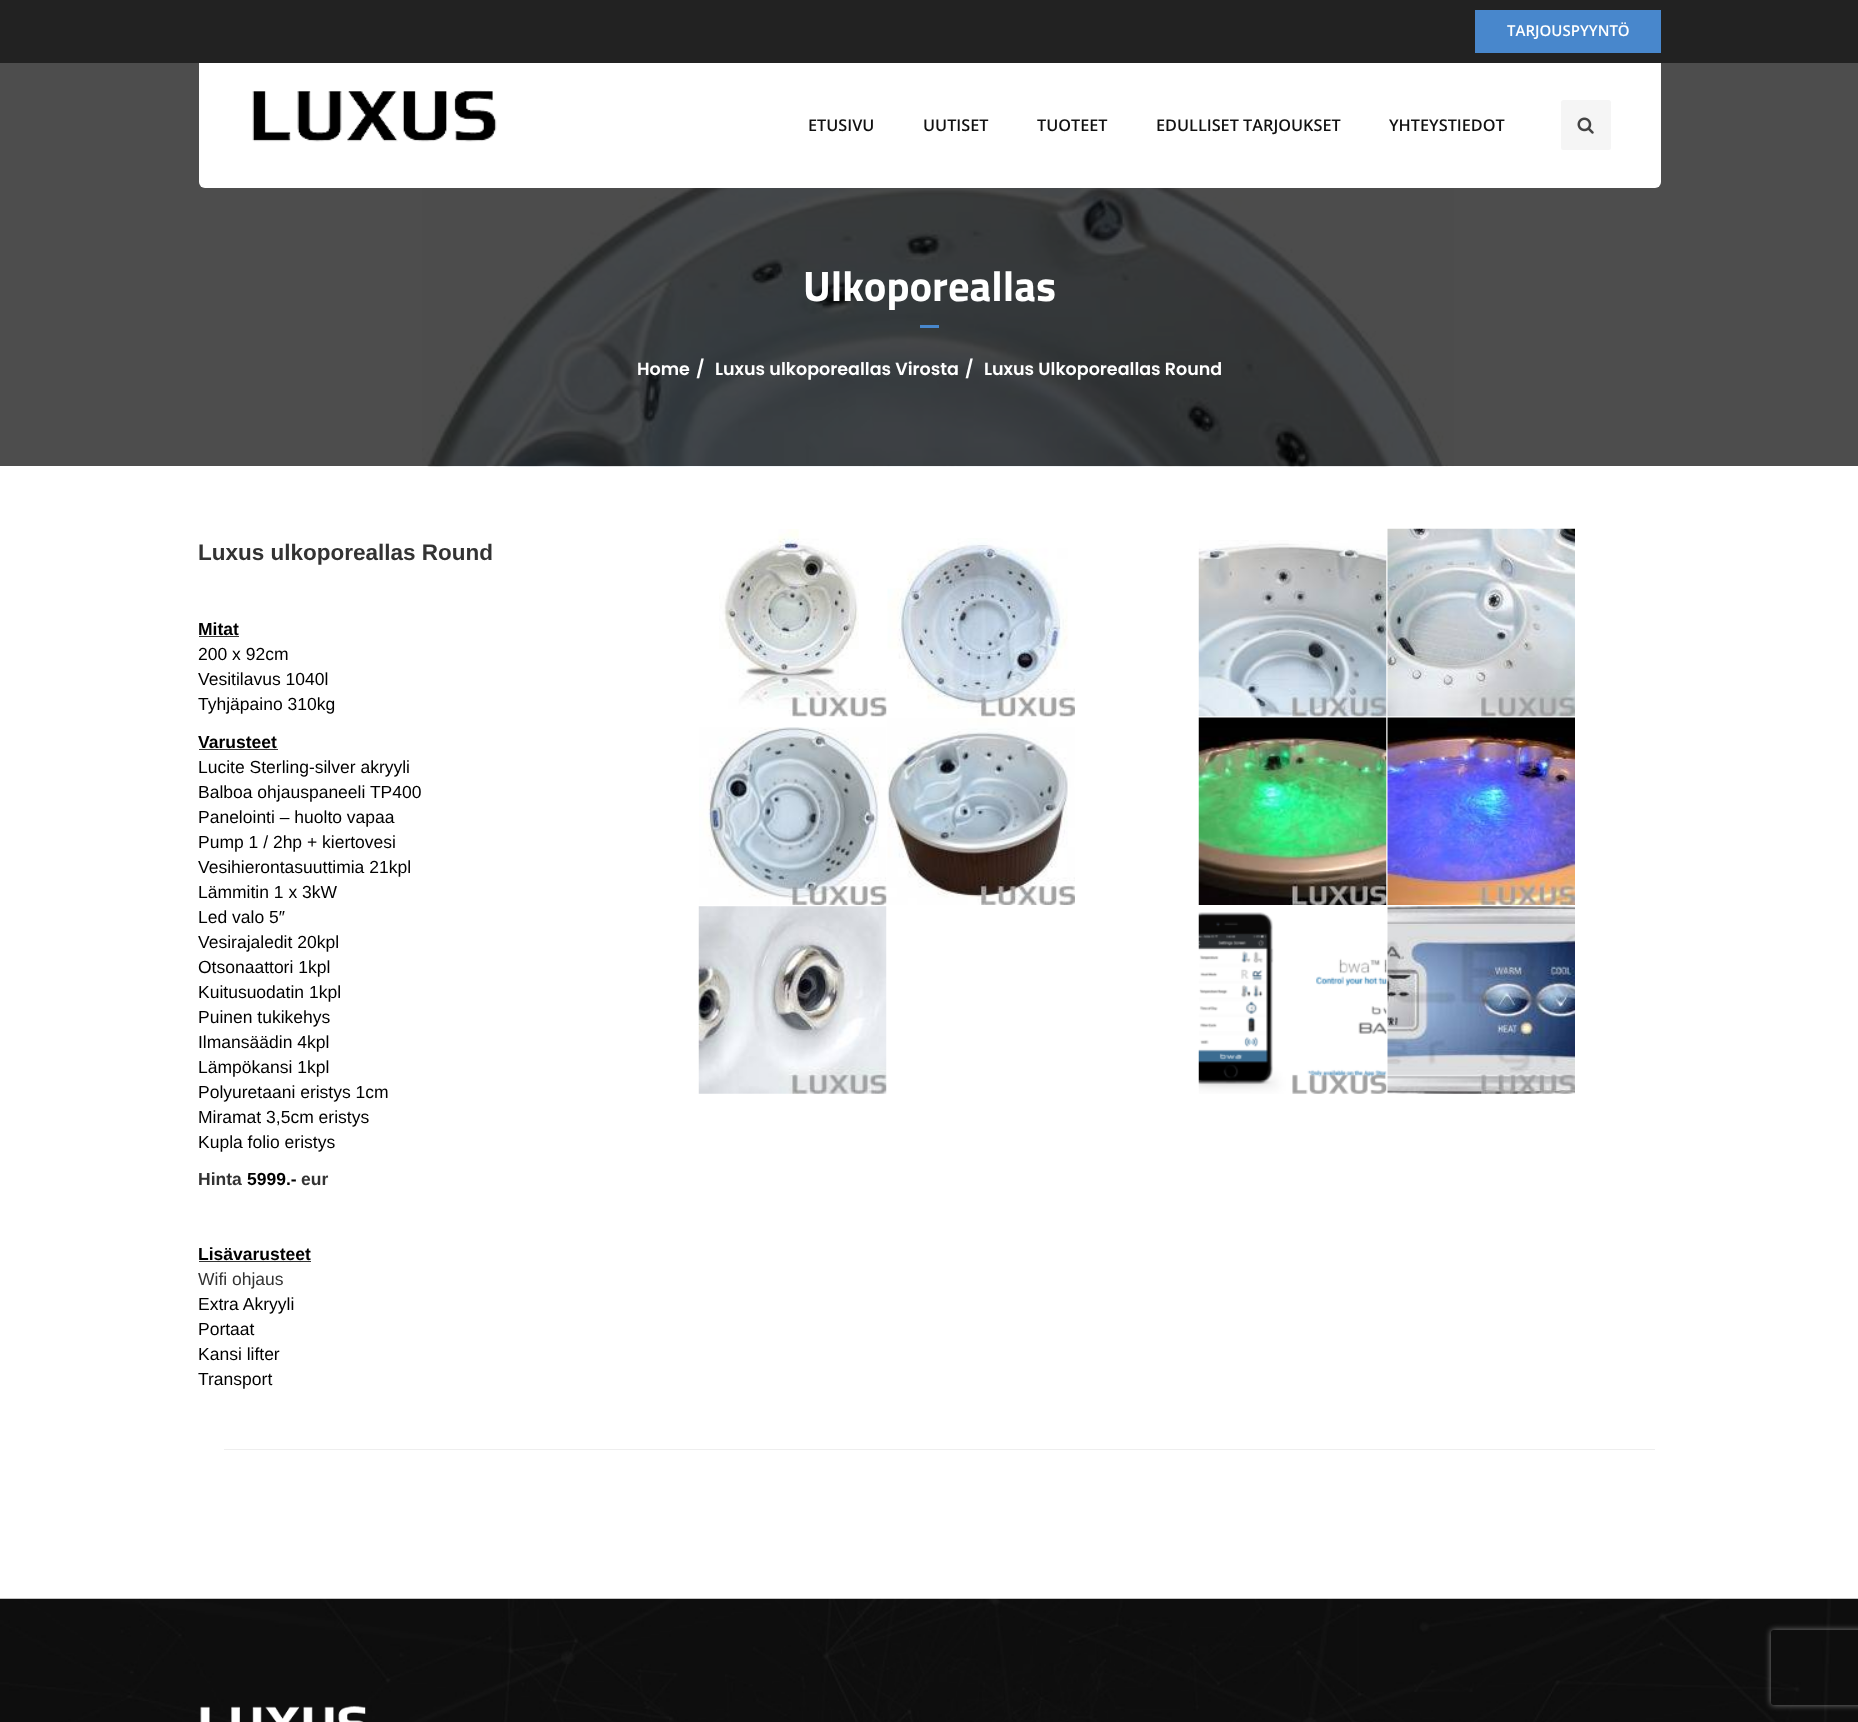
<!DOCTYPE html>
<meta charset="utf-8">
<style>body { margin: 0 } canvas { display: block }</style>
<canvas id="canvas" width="1858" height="1722"></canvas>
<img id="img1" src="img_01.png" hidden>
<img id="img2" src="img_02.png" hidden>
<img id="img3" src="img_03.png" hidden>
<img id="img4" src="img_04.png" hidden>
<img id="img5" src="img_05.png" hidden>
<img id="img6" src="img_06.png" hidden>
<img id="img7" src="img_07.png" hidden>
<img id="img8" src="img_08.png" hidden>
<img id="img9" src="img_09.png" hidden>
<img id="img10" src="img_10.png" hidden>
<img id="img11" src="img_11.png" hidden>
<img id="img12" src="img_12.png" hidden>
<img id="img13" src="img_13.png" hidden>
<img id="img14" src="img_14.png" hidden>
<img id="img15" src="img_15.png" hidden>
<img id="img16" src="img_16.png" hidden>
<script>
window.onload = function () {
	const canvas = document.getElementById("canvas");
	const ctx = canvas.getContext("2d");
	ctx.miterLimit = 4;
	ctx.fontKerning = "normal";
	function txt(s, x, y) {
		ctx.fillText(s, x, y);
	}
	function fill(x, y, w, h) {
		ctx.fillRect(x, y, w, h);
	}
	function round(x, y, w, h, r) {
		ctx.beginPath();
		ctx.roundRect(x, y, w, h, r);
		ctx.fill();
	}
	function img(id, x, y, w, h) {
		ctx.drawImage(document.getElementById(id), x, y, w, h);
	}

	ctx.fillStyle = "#FFFFFF";
	fill(0, 0, 1858, 1722);
	ctx.fillStyle = "#4D4D4D";
	fill(0, 63, 1858, 403);
	ctx.fillStyle = "#222222";
	fill(0, 0, 1858, 63);
	ctx.fillStyle = "#4887CC";
	fill(1475, 10, 186, 43);
	ctx.fillStyle = "#FFFFFF";
	ctx.beginPath();
	ctx.roundRect(199, 63, 1462, 125, [0, 0, 6, 6]);
	ctx.fill();
	img("img1", 252, 90, 245, 52);
	ctx.fillStyle = "#F5F5F5";
	round(1561, 100, 50, 50, 2.5);
	img("img2", 1577, 117, 17, 17);
	img("img3", 422, 188, 1032, 279);
	ctx.fillStyle = "#4887CC";
	fill(920, 325, 19, 3);
	ctx.fillStyle = "#333333";
	fill(199, 636, 40, 1);
	fill(199, 749, 79, 1);
	fill(199, 1261, 112, 1);
	img("img4", 719, 529, 168, 188);
	img("img5", 887, 538, 188, 179);
	img("img6", 699, 727, 188, 178);
	img("img7", 887, 718, 188, 187);
	img("img8", 698, 906, 189, 188);
	img("img9", 1198, 540, 189, 177);
	img("img10", 1387, 528, 188, 189);
	img("img11", 1198, 717, 189, 188);
	img("img12", 1387, 717, 188, 188);
	img("img13", 1198, 912, 189, 182);
	img("img14", 1387, 906, 188, 188);
	ctx.fillStyle = "#EEEEEE";
	fill(224, 1449, 1431, 1);
	img("img15", 0, 1598, 1858, 124);
	img("img16", 200, 1705, 166, 17);
	ctx.save();
	ctx.beginPath();
	ctx.moveTo(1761, 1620);
	ctx.lineTo(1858, 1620);
	ctx.lineTo(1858, 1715);
	ctx.lineTo(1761, 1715);
	ctx.closePath();
	ctx.moveTo(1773.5, 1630);
	ctx.lineTo(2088.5, 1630);
	ctx.bezierCurveTo(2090, 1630, 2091, 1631, 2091, 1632.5);
	ctx.lineTo(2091, 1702.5);
	ctx.bezierCurveTo(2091, 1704, 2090, 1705, 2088.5, 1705);
	ctx.lineTo(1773.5, 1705);
	ctx.bezierCurveTo(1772, 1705, 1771, 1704, 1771, 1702.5);
	ctx.lineTo(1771, 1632.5);
	ctx.bezierCurveTo(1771, 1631, 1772, 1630, 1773.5, 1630);
	ctx.closePath();
	ctx.clip("evenodd");
	ctx.fillStyle = "#808080";
	ctx.filter = "blur(3px)";
	ctx.beginPath();
	ctx.roundRect(1771, 1630, 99, 75, 2.5);
	ctx.fill();
	ctx.filter = "none";
	ctx.restore();
	ctx.font = "600 15px Open Sans";
	ctx.fillStyle = "#FFFFFF";
	txt("TARJOUSPYYNTÖ", 1507, 36);
	ctx.font = "600 16.25px Open Sans";
	ctx.fillStyle = "#111111";
	txt("ETUSIVU", 808, 131);
	txt("UUTISET", 923, 131);
	txt("TUOTEET", 1037, 131);
	txt("EDULLISET TARJOUKSET", 1156, 131);
	txt("YHTEYSTIEDOT", 1389, 131);
	ctx.font = "bold 42.5px Titillium Web";
	ctx.fillStyle = "#FFFFFF";
	txt("Ulkoporeallas", 803, 301);
	ctx.font = "600 17.5px Poppins";
	txt("Home", 637, 375);
	txt("/", 696, 375);
	txt("Luxus ulkoporeallas Virosta", 715, 375);
	txt("/", 965, 375);
	txt("Luxus Ulkoporeallas Round", 984, 375);
	ctx.font = "bold 22.5px Liberation Sans";
	ctx.fillStyle = "#333333";
	txt("Luxus ulkoporeallas Round", 198, 560);
	ctx.font = "bold 17.5px Liberation Sans";
	ctx.fillStyle = "#000000";
	txt("Mitat", 198, 635);
	ctx.font = "17.5px Liberation Sans";
	txt("200 x 92cm", 198, 660);
	txt("Vesitilavus 1040l", 198, 685);
	txt("Tyhjäpaino 310kg", 198, 710);
	ctx.font = "bold 17.5px Liberation Sans";
	txt("Varusteet", 198, 748);
	ctx.font = "17.5px Liberation Sans";
	txt("Lucite Sterling-silver akryyli", 198, 773);
	txt("Balboa ohjauspaneeli TP400", 198, 798);
	txt("Panelointi – huolto vapaa", 198, 823);
	txt("Pump 1 / 2hp + kiertovesi", 198, 848);
	txt("Vesihierontasuuttimia 21kpl", 198, 873);
	txt("Lämmitin 1 x 3kW", 198, 898);
	txt("Led valo 5″", 198, 923);
	txt("Vesirajaledit 20kpl", 198, 948);
	txt("Otsonaattori 1kpl", 198, 973);
	txt("Kuitusuodatin 1kpl", 198, 998);
	txt("Puinen tukikehys", 198, 1023);
	txt("Ilmansäädin 4kpl", 198, 1048);
	txt("Lämpökansi 1kpl", 198, 1073);
	txt("Polyuretaani eristys 1cm", 198, 1098);
	txt("Miramat 3,5cm eristys", 198, 1123);
	txt("Kupla folio eristys", 198, 1148);
	ctx.font = "bold 17.5px Liberation Sans";
	ctx.fillStyle = "#333333";
	txt("Hinta", 198, 1185);
	ctx.fillStyle = "#000000";
	txt("5999.-", 247, 1185);
	ctx.fillStyle = "#333333";
	txt("eur", 301, 1185);
	ctx.fillStyle = "#000000";
	txt("Lisävarusteet", 198, 1260);
	ctx.font = "17.5px Liberation Sans";
	ctx.fillStyle = "#333333";
	txt("Wifi ohjaus", 198, 1285);
	ctx.fillStyle = "#000000";
	txt("Extra Akryyli", 198, 1310);
	txt("Portaat", 198, 1335);
	txt("Kansi lifter", 198, 1360);
	txt("Transport", 198, 1385);
};
</script>
